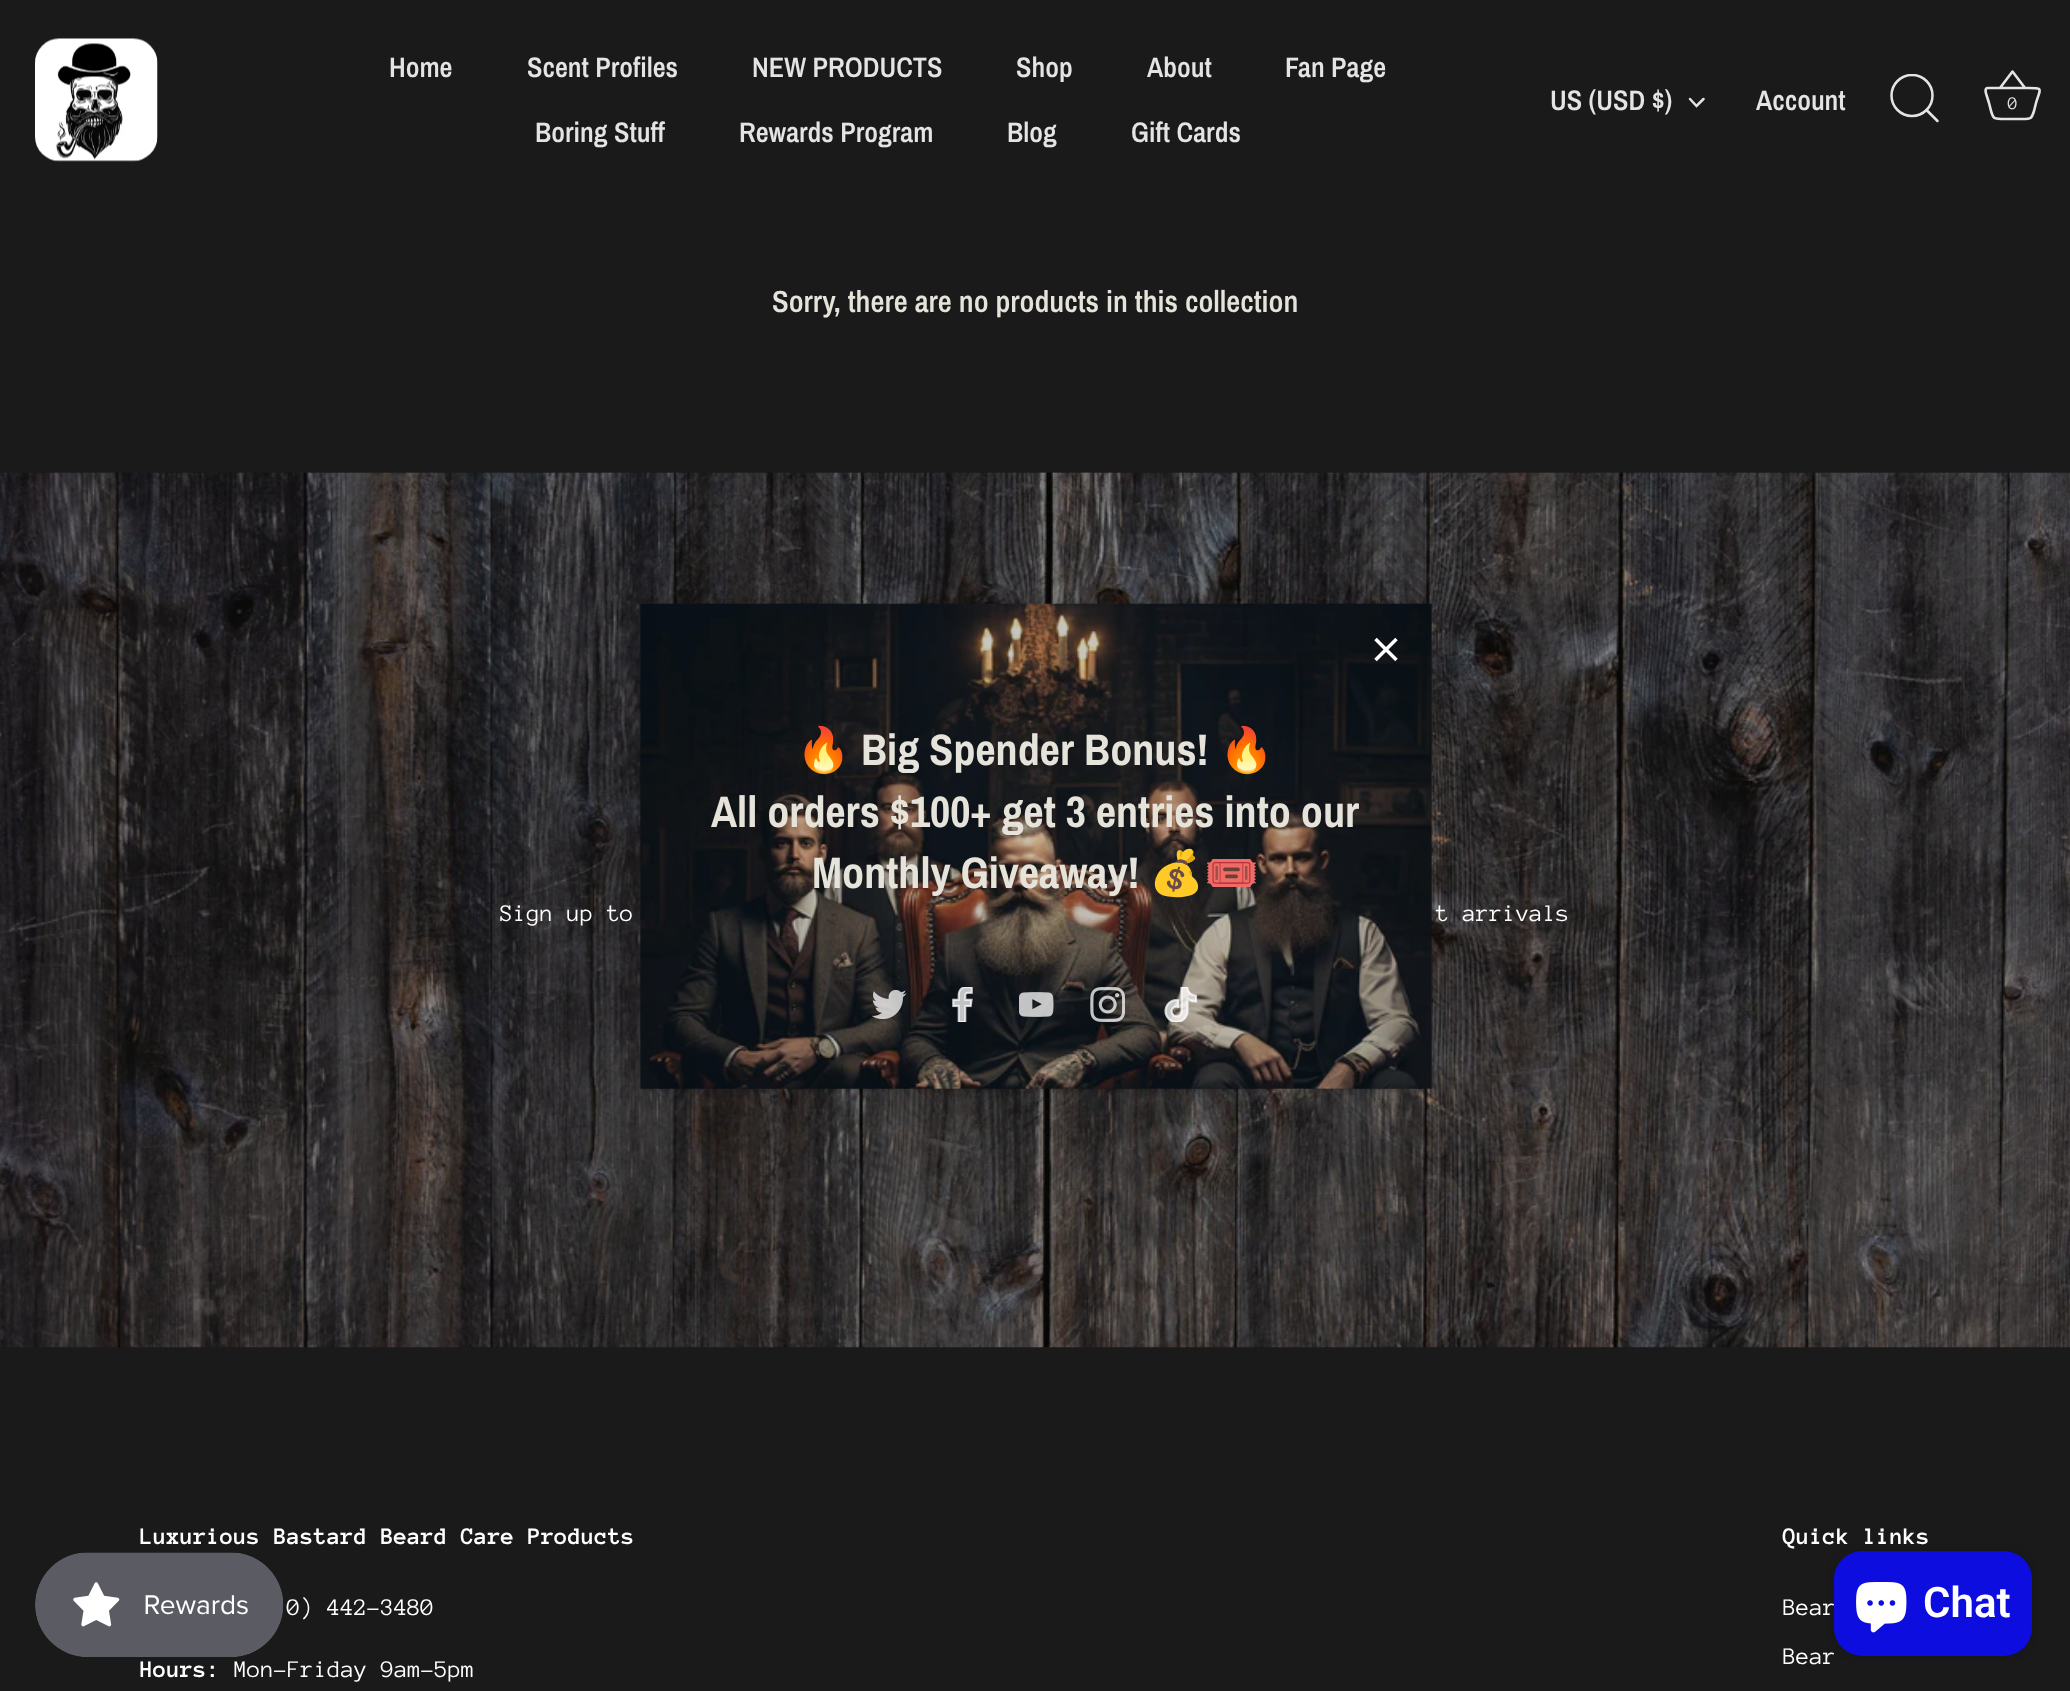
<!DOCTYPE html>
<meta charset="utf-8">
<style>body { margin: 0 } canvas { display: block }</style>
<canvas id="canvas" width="2070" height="1691"></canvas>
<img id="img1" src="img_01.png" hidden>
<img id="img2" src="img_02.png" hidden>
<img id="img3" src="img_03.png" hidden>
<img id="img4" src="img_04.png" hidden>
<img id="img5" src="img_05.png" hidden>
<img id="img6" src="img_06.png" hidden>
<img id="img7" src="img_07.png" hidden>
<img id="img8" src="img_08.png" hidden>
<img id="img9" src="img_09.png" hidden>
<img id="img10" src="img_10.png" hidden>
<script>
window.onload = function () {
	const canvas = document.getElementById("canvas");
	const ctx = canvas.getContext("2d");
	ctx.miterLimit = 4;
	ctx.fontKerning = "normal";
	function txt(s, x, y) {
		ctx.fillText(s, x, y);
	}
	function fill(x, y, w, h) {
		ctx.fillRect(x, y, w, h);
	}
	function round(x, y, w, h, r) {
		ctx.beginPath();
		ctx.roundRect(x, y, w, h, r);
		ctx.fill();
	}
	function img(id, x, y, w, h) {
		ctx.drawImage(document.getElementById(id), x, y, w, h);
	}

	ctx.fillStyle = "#1A1A1A";
	fill(0, 0, 2070, 1691);
	img("img1", 35, 38, 123, 124);
	ctx.beginPath();
	ctx.moveTo(1690, 99);
	ctx.lineTo(1696.5, 106);
	ctx.lineTo(1703.5, 99);
	ctx.strokeStyle = "#E4E4E4";
	ctx.lineWidth = 2.5;
	ctx.lineCap = "round";
	ctx.stroke();
	ctx.save();
	ctx.beginPath();
	ctx.rect(1890, 74, 51, 50);
	ctx.clip();
	ctx.beginPath();
	ctx.arc(1912, 95.5, 20.5, 0, Math.PI * 2);
	ctx.stroke();
	ctx.restore();
	ctx.beginPath();
	ctx.moveTo(1937.5, 121);
	ctx.lineTo(1926.5, 110);
	ctx.lineJoin = "round";
	ctx.stroke();
	ctx.beginPath();
	ctx.moveTo(1988, 88);
	ctx.bezierCurveTo(1984, 88, 1986, 93.5, 1986.5, 95);
	ctx.lineTo(1989, 103);
	ctx.bezierCurveTo(1993.5, 119.5, 1990.5, 119, 2007.5, 119);
	ctx.lineTo(2022.5, 119);
	ctx.bezierCurveTo(2031, 119, 2031.5, 119, 2034, 111);
	ctx.lineTo(2036, 103);
	ctx.bezierCurveTo(2040.5, 88, 2043.5, 88, 2028.5, 88);
	ctx.lineTo(1988, 88);
	ctx.moveTo(2000, 88);
	ctx.lineTo(2012.5, 71.5);
	ctx.lineTo(2025, 88);
	ctx.lineWidth = 2.6;
	ctx.lineCap = "butt";
	ctx.stroke();
	img("img2", 0, 472, 2070, 876);
	ctx.fillStyle = "rgba(0, 0, 0, 0.3)";
	ctx.filter = "blur(3.5px)";
	ctx.beginPath();
	ctx.rect(642, 607, 788, 482);
	ctx.fill();
	ctx.filter = "none";
	img("img3", 640, 603, 792, 486);
	ctx.fillStyle = "rgba(26, 26, 26, 0.24)";
	fill(641, 604, 791, 485);
	ctx.beginPath();
	ctx.moveTo(1396.5, 639);
	ctx.lineTo(1375.5, 660);
	ctx.moveTo(1375.5, 639);
	ctx.lineTo(1396.5, 660);
	ctx.strokeStyle = "#FFFFFF";
	ctx.lineWidth = 3.5;
	ctx.lineJoin = "miter";
	ctx.stroke();
	img("img4", 872, 989, 35, 31);
	img("img5", 952, 987, 21, 35);
	img("img6", 1019, 992, 35, 25);
	img("img7", 1090, 987, 35, 35);
	img("img8", 1164, 987, 34, 35);
	img("img9", 35, 1552, 249, 105);
	ctx.fillStyle = "rgba(0, 0, 0, 0.15)";
	ctx.filter = "blur(4.5px)";
	ctx.beginPath();
	ctx.roundRect(1834, 1551, 198, 105, 28);
	ctx.fill();
	ctx.filter = "none";
	ctx.font = "600 28.25px Archivo Narrow";
	ctx.fillStyle = "#E4E4E4";
	txt("Home", 389, 77);
	txt("Scent Profiles", 527, 77);
	txt("NEW PRODUCTS", 752, 77);
	txt("Shop", 1016, 77);
	txt("About", 1147, 77);
	txt("Fan Page", 1285, 77);
	txt("Boring Stuff", 535, 142);
	txt("Rewards Program", 739, 142);
	txt("Blog", 1007, 142);
	txt("Gift Cards", 1131, 142);
	txt("US (USD $)", 1550, 110);
	txt("Account", 1756, 110);
	ctx.font = "18px Anonymous Pro";
	txt("0", 2008, 109);
	ctx.font = "600 30.6px Archivo Narrow";
	ctx.fillStyle = "#E5E3DA";
	txt("Sorry, there are no products in this collection", 772, 312);
	ctx.font = "24.5px Anonymous Pro";
	ctx.fillStyle = "#FFFFFF";
	txt("Sign up to", 500, 921);
	txt("t arrivals", 1436, 921);
	ctx.font = "bold 44.1px Noto Color Emoji";
	ctx.fillStyle = "#E5E3DA";
	txt("🔥", 796, 765);
	ctx.font = "bold 44.1px Archivo Narrow";
	txt("Big Spender Bonus!", 861, 765);
	ctx.font = "bold 44.1px Noto Color Emoji";
	txt("🔥", 1219, 765);
	ctx.font = "bold 44.1px Archivo Narrow";
	txt("All orders $100+ get 3 entries into our", 711, 827);
	txt("Monthly Giveaway!", 812, 888);
	ctx.font = "bold 44.1px Noto Color Emoji";
	txt("💰🎟️", 1149, 888);
	ctx.font = "bold 24.5px Anonymous Pro";
	ctx.fillStyle = "#FFFFFF";
	txt("Luxurious Bastard Beard Care Products", 140, 1544);
	ctx.font = "24.5px Anonymous Pro";
	txt("0) 442-3480", 287, 1615);
	ctx.font = "bold 24.5px Anonymous Pro";
	txt("Hours:", 140, 1677);
	ctx.font = "24.5px Anonymous Pro";
	txt("Mon-Friday 9am-5pm", 234, 1677);
	ctx.font = "bold 24.5px Anonymous Pro";
	txt("Quick links", 1783, 1544);
	ctx.font = "24.5px Anonymous Pro";
	txt("Bear", 1783, 1615);
	txt("Bear", 1783, 1664);
	ctx.fillStyle = "#0D0DDF";
	round(1834, 1551, 198, 105, 28);
	img("img10", 1856, 1582, 51, 51);
	ctx.font = "600 42px Roboto";
	ctx.fillStyle = "#FFFFFF";
	txt("Chat", 1923, 1617);
};
</script>
